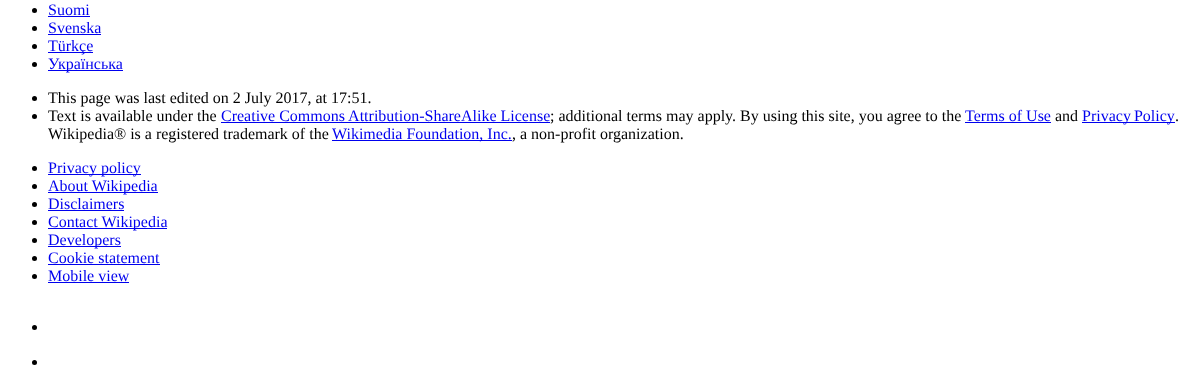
<!DOCTYPE html>
<meta charset="utf-8">
<style>body { margin: 0 } canvas { display: block }</style>
<canvas id="canvas" width="1202" height="384"></canvas>
<script>
window.onload = function () {
	const canvas = document.getElementById("canvas");
	const ctx = canvas.getContext("2d");
	ctx.miterLimit = 4;
	ctx.fontKerning = "normal";
	function txt(s, x, y) {
		ctx.fillText(s, x, y);
	}
	function fill(x, y, w, h) {
		ctx.fillRect(x, y, w, h);
	}

	ctx.fillStyle = "#FFFFFF";
	fill(0, 0, 1202, 384);
	ctx.fillStyle = "#000000";
	ctx.beginPath();
	ctx.arc(34.5, 10.5, 2.5, 0, Math.PI * 2);
	ctx.fill();
	ctx.fillStyle = "#0000EE";
	fill(48, 16, 42, 1);
	ctx.fillStyle = "#000000";
	ctx.beginPath();
	ctx.arc(34.5, 28.5, 2.5, 0, Math.PI * 2);
	ctx.fill();
	ctx.fillStyle = "#0000EE";
	fill(48, 34, 53, 1);
	ctx.fillStyle = "#000000";
	ctx.beginPath();
	ctx.arc(34.5, 46.5, 2.5, 0, Math.PI * 2);
	ctx.fill();
	ctx.fillStyle = "#0000EE";
	fill(48, 52, 45, 1);
	ctx.fillStyle = "#000000";
	ctx.beginPath();
	ctx.arc(34.5, 64.5, 2.5, 0, Math.PI * 2);
	ctx.fill();
	ctx.fillStyle = "#0000EE";
	fill(48, 70, 75, 1);
	ctx.fillStyle = "#000000";
	ctx.beginPath();
	ctx.arc(34.5, 98.5, 2.5, 0, Math.PI * 2);
	ctx.fill();
	ctx.beginPath();
	ctx.arc(34.5, 116.5, 2.5, 0, Math.PI * 2);
	ctx.fill();
	ctx.fillStyle = "#0000EE";
	fill(221, 122, 329, 1);
	fill(965, 122, 86, 1);
	fill(1082, 122, 93, 1);
	fill(332, 140, 180, 1);
	ctx.fillStyle = "#000000";
	ctx.beginPath();
	ctx.arc(34.5, 168.5, 2.5, 0, Math.PI * 2);
	ctx.fill();
	ctx.fillStyle = "#0000EE";
	fill(48, 174, 93, 1);
	ctx.fillStyle = "#000000";
	ctx.beginPath();
	ctx.arc(34.5, 186.5, 2.5, 0, Math.PI * 2);
	ctx.fill();
	ctx.fillStyle = "#0000EE";
	fill(48, 192, 110, 1);
	ctx.fillStyle = "#000000";
	ctx.beginPath();
	ctx.arc(34.5, 204.5, 2.5, 0, Math.PI * 2);
	ctx.fill();
	ctx.fillStyle = "#0000EE";
	fill(48, 210, 76, 1);
	ctx.fillStyle = "#000000";
	ctx.beginPath();
	ctx.arc(34.5, 222.5, 2.5, 0, Math.PI * 2);
	ctx.fill();
	ctx.fillStyle = "#0000EE";
	fill(48, 228, 119, 1);
	ctx.fillStyle = "#000000";
	ctx.beginPath();
	ctx.arc(34.5, 240.5, 2.5, 0, Math.PI * 2);
	ctx.fill();
	ctx.fillStyle = "#0000EE";
	fill(48, 246, 73, 1);
	ctx.fillStyle = "#000000";
	ctx.beginPath();
	ctx.arc(34.5, 258.5, 2.5, 0, Math.PI * 2);
	ctx.fill();
	ctx.fillStyle = "#0000EE";
	fill(48, 264, 112, 1);
	ctx.fillStyle = "#000000";
	ctx.beginPath();
	ctx.arc(34.5, 276.5, 2.5, 0, Math.PI * 2);
	ctx.fill();
	ctx.fillStyle = "#0000EE";
	fill(48, 282, 81, 1);
	ctx.fillStyle = "#000000";
	ctx.beginPath();
	ctx.arc(34.5, 327.5, 2.5, 0, Math.PI * 2);
	ctx.fill();
	ctx.beginPath();
	ctx.arc(34.5, 362.5, 2.5, 0, Math.PI * 2);
	ctx.fill();
	ctx.font = "16px Liberation Serif";
	ctx.fillStyle = "#0000EE";
	txt("Suomi", 48, 15);
	txt("Svenska", 48, 33);
	txt("Türkçe", 48, 51);
	txt("Українська", 48, 69);
	ctx.fillStyle = "#000000";
	txt("This page was last edited on 2 July 2017, at 17:51.", 48, 103);
	txt("Text is available under the", 48, 121);
	ctx.fillStyle = "#0000EE";
	txt("Creative Commons Attribution-ShareAlike License", 221, 121);
	ctx.fillStyle = "#000000";
	txt("; additional terms may apply. By using this site, you agree to the", 550, 121);
	ctx.fillStyle = "#0000EE";
	txt("Terms of Use", 965, 121);
	ctx.fillStyle = "#000000";
	txt("and", 1055, 121);
	ctx.wordSpacing = "-1px";
	ctx.fillStyle = "#0000EE";
	txt("Privacy Policy", 1082, 121);
	ctx.wordSpacing = "0px";
	ctx.fillStyle = "#000000";
	txt(".", 1175, 121);
	txt("Wikipedia® is a registered trademark of the", 48, 139);
	ctx.fillStyle = "#0000EE";
	txt("Wikimedia Foundation, Inc.", 332, 139);
	ctx.fillStyle = "#000000";
	txt(", a non-profit organization.", 512, 139);
	ctx.fillStyle = "#0000EE";
	txt("Privacy policy", 48, 173);
	txt("About Wikipedia", 48, 191);
	txt("Disclaimers", 48, 209);
	txt("Contact Wikipedia", 48, 227);
	txt("Developers", 48, 245);
	txt("Cookie statement", 48, 263);
	txt("Mobile view", 48, 281);
};
</script>
